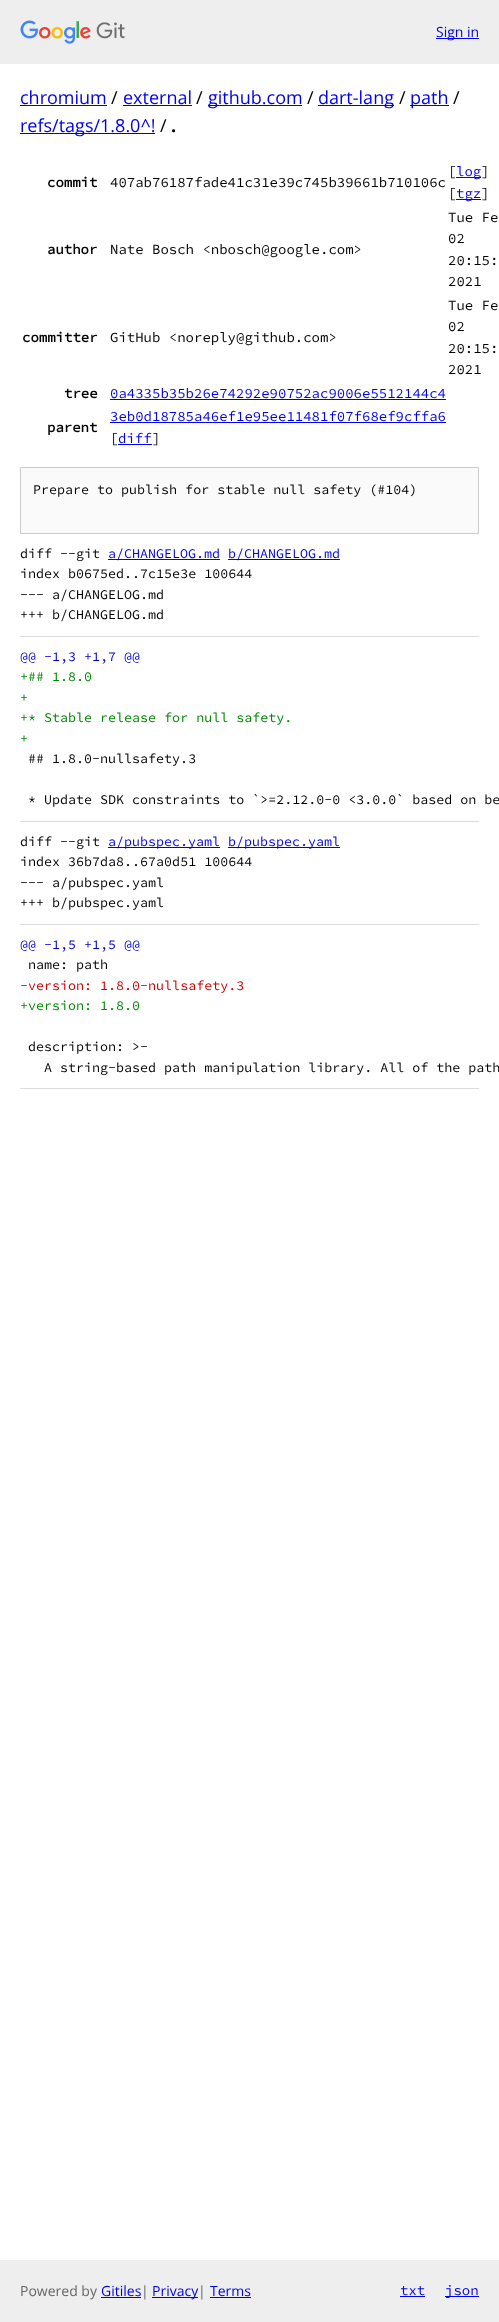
<!DOCTYPE html>
<meta charset="utf-8">
<style>body { margin: 0 } canvas { display: block }</style>
<canvas id="canvas" width="499" height="2322"></canvas>
<img id="img1" src="img_01.png" hidden>
<script>
window.onload = function () {
	const canvas = document.getElementById("canvas");
	const ctx = canvas.getContext("2d");
	ctx.miterLimit = 4;
	ctx.fontKerning = "normal";
	function txt(s, x, y) {
		ctx.fillText(s, x, y);
	}
	function fill(x, y, w, h) {
		ctx.fillRect(x, y, w, h);
	}
	function img(id, x, y, w, h) {
		ctx.drawImage(document.getElementById(id), x, y, w, h);
	}

	ctx.fillStyle = "#FFFFFF";
	fill(0, 0, 499, 2322);
	ctx.fillStyle = "#EEEEEE";
	fill(0, 0, 499, 64);
	img("img1", 20, 20, 105, 24);
	ctx.fillStyle = "#0000EE";
	fill(436, 38, 43, 1);
	fill(20, 105, 87, 1);
	fill(123, 105, 69, 1);
	fill(208, 105, 94, 1);
	fill(318, 105, 76, 1);
	fill(410, 105, 39, 1);
	fill(20, 133, 135, 1);
	fill(456, 177, 25, 1);
	fill(456, 199, 25, 1);
	fill(110, 399, 336, 1);
	fill(110, 422, 336, 1);
	fill(118, 444, 34, 1);
	ctx.fillStyle = "#FAFAFA";
	ctx.beginPath();
	ctx.rect(20.5, 467.5, 458, 66);
	ctx.fill();
	ctx.strokeStyle = "#CCCCCC";
	ctx.stroke();
	ctx.fillStyle = "#0000EE";
	fill(108, 559, 112, 1);
	fill(228, 559, 112, 1);
	ctx.fillStyle = "#DDDDDD";
	fill(20, 636, 459, 1);
	fill(20, 821, 459, 1);
	ctx.fillStyle = "#0000EE";
	fill(108, 847, 112, 1);
	fill(228, 847, 112, 1);
	ctx.fillStyle = "#DDDDDD";
	fill(20, 924, 459, 1);
	fill(20, 1088, 459, 1);
	ctx.fillStyle = "#EEEEEE";
	fill(0, 2260, 499, 62);
	ctx.fillStyle = "#0000EE";
	fill(101, 2297, 40, 1);
	fill(152, 2297, 46, 1);
	fill(210, 2297, 41, 1);
	fill(400, 2296, 25, 1);
	fill(445, 2296, 34, 1);
	ctx.font = "14px Open Sans";
	txt("Sign in", 436, 37);
	ctx.font = "18px Open Sans";
	txt("chromium", 20, 104);
	ctx.fillStyle = "#000000";
	txt("/", 111, 104);
	ctx.fillStyle = "#0000EE";
	txt("external", 123, 104);
	ctx.fillStyle = "#000000";
	txt("/", 196, 104);
	ctx.fillStyle = "#0000EE";
	txt("github.com", 208, 104);
	ctx.fillStyle = "#000000";
	txt("/", 307, 104);
	ctx.fillStyle = "#0000EE";
	txt("dart-lang", 318, 104);
	ctx.fillStyle = "#000000";
	txt("/", 399, 104);
	ctx.fillStyle = "#0000EE";
	txt("path", 410, 104);
	ctx.fillStyle = "#000000";
	txt("/", 453, 104);
	ctx.fillStyle = "#0000EE";
	txt("refs/tags/1.8.0^!", 20, 132);
	ctx.fillStyle = "#000000";
	txt("/", 160, 132);
	ctx.font = "bold 18px Open Sans";
	txt(".", 171, 132);
	ctx.font = "bold 14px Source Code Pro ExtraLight";
	txt("commit", 47, 187);
	ctx.font = "200 14px Source Code Pro ExtraLight";
	txt("407ab76187fade41c31e39c745b39661b710106c", 110, 187);
	txt("[", 448, 176);
	ctx.fillStyle = "#0000EE";
	txt("log", 456, 176);
	ctx.fillStyle = "#000000";
	txt("]", 481, 176);
	txt("[", 448, 198);
	ctx.fillStyle = "#0000EE";
	txt("tgz", 456, 198);
	ctx.fillStyle = "#000000";
	txt("]", 481, 198);
	ctx.font = "bold 14px Source Code Pro ExtraLight";
	txt("author", 47, 254);
	ctx.font = "200 14px Source Code Pro ExtraLight";
	txt("Nate Bosch <nbosch@google.com>", 110, 254);
	txt("Tue Fe", 448, 222);
	txt("02", 448, 243);
	txt("20:15:", 448, 265);
	txt("2021", 448, 286);
	ctx.font = "bold 14px Source Code Pro ExtraLight";
	txt("committer", 22, 342);
	ctx.font = "200 14px Source Code Pro ExtraLight";
	txt("GitHub <noreply@github.com>", 110, 342);
	txt("Tue Fe", 448, 310);
	txt("02", 448, 331);
	txt("20:15:", 448, 353);
	txt("2021", 448, 374);
	ctx.font = "bold 14px Source Code Pro ExtraLight";
	txt("tree", 64, 398);
	ctx.font = "200 14px Source Code Pro ExtraLight";
	ctx.fillStyle = "#0000EE";
	txt("0a4335b35b26e74292e90752ac9006e5512144c4", 110, 398);
	ctx.font = "bold 14px Source Code Pro ExtraLight";
	ctx.fillStyle = "#000000";
	txt("parent", 47, 432);
	ctx.font = "200 14px Source Code Pro ExtraLight";
	ctx.fillStyle = "#0000EE";
	txt("3eb0d18785a46ef1e95ee11481f07f68ef9cffa6", 110, 421);
	ctx.fillStyle = "#000000";
	txt("[", 110, 443);
	ctx.fillStyle = "#0000EE";
	txt("diff", 118, 443);
	ctx.fillStyle = "#000000";
	txt("]", 152, 443);
	ctx.font = "200 13.35px Source Code Pro ExtraLight";
	txt("Prepare to publish for stable null safety (#104)", 33, 494);
	txt("diff --git", 20, 558);
	ctx.fillStyle = "#0000EE";
	txt("a/CHANGELOG.md", 108, 558);
	txt("b/CHANGELOG.md", 228, 558);
	ctx.fillStyle = "#000000";
	txt("index b0675ed..7c15e3e 100644", 20, 578);
	txt("--- a/CHANGELOG.md", 20, 599);
	txt("+++ b/CHANGELOG.md", 20, 619);
	ctx.fillStyle = "#0000CC";
	txt("@@ -1,3 +1,7 @@", 20, 661);
	ctx.fillStyle = "#008800";
	txt("+## 1.8.0", 20, 681);
	txt("+", 20, 702);
	txt("+* Stable release for null safety.", 20, 722);
	txt("+", 20, 743);
	ctx.fillStyle = "#000000";
	txt("## 1.8.0-nullsafety.3", 28, 763);
	txt("* Update SDK constraints to `>=2.12.0-0 <3.0.0` based on be", 28, 804);
	txt("diff --git", 20, 846);
	ctx.fillStyle = "#0000EE";
	txt("a/pubspec.yaml", 108, 846);
	txt("b/pubspec.yaml", 228, 846);
	ctx.fillStyle = "#000000";
	txt("index 36b7da8..67a0d51 100644", 20, 866);
	txt("--- a/pubspec.yaml", 20, 887);
	txt("+++ b/pubspec.yaml", 20, 907);
	ctx.fillStyle = "#0000CC";
	txt("@@ -1,5 +1,5 @@", 20, 949);
	ctx.fillStyle = "#000000";
	txt("name: path", 28, 969);
	ctx.fillStyle = "#CC0000";
	txt("-version: 1.8.0-nullsafety.3", 20, 990);
	ctx.fillStyle = "#008800";
	txt("+version: 1.8.0", 20, 1010);
	ctx.fillStyle = "#000000";
	txt("description: >-", 28, 1051);
	txt("A string-based path manipulation library. All of the path", 44, 1072);
	ctx.font = "14px Open Sans";
	ctx.fillStyle = "#666666";
	txt("Powered by", 20, 2296);
	ctx.fillStyle = "#0000EE";
	txt("Gitiles", 101, 2296);
	ctx.fillStyle = "#666666";
	txt("|", 141, 2296);
	ctx.fillStyle = "#0000EE";
	txt("Privacy", 152, 2296);
	ctx.fillStyle = "#666666";
	txt("|", 198, 2296);
	ctx.fillStyle = "#0000EE";
	txt("Terms", 210, 2296);
	ctx.font = "200 14px Source Code Pro ExtraLight";
	txt("txt", 400, 2295);
	txt("json", 445, 2295);
};
</script>
